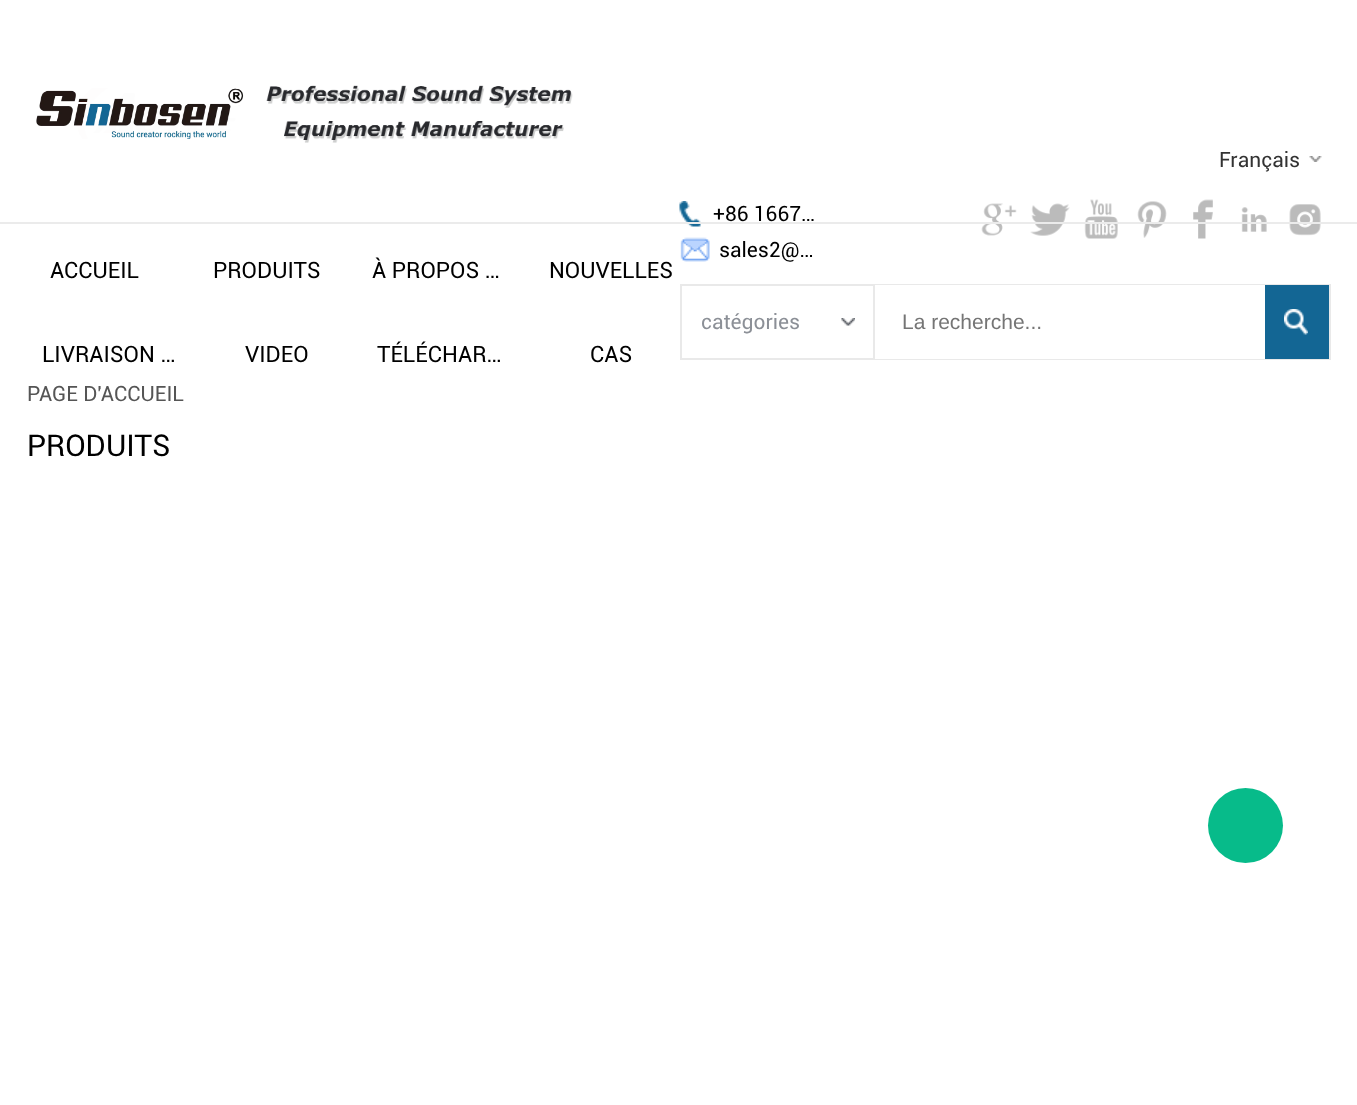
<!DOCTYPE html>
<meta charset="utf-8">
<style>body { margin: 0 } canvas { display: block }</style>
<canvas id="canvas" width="1357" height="1105"></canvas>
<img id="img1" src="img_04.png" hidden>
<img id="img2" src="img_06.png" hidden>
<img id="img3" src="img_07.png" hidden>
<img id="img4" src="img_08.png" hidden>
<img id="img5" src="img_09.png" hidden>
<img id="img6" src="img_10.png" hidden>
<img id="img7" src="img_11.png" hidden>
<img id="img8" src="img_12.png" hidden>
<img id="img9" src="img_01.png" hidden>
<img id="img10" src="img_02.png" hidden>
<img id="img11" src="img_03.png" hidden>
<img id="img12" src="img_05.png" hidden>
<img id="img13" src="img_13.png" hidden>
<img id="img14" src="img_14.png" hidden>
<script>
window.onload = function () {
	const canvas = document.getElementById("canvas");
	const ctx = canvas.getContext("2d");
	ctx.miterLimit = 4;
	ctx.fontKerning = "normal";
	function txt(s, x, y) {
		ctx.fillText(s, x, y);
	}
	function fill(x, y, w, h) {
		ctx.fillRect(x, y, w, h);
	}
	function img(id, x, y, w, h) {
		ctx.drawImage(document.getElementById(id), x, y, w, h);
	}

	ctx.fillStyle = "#FFFFFF";
	fill(0, 0, 1357, 1105);
	img("img1", 679, 201, 22, 26);
	img("img2", 981, 203, 36, 33);
	img("img3", 1030, 203, 40, 33);
	img("img4", 1084, 199, 34, 40);
	img("img5", 1137, 201, 30, 37);
	img("img6", 1193, 199, 20, 40);
	img("img7", 1241, 207, 26, 25);
	img("img8", 1289, 204, 32, 32);
	ctx.fillStyle = "#EBEBEB";
	fill(0, 222, 1357, 2);
	img("img9", 36, 88, 208, 51);
	img("img10", 266, 85, 307, 58);
	img("img11", 1309, 156, 13, 6);
	img("img12", 680, 237, 30, 25);
	ctx.strokeStyle = "#E9E9E9";
	ctx.lineWidth = 2;
	ctx.strokeRect(681, 285, 649, 74);
	img("img13", 841, 318, 14, 8);
	ctx.fillStyle = "#E9E9E9";
	fill(873, 285, 2, 74);
	ctx.fillStyle = "#FFFFFF";
	fill(875, 285, 390, 74);
	ctx.fillStyle = "#136694";
	fill(1265, 285, 64, 74);
	img("img14", 1284, 309, 24, 26);
	ctx.fillStyle = "#07BB8A";
	ctx.beginPath();
	ctx.arc(1245.5, 825.5, 37.5, 0, Math.PI * 2);
	ctx.fill();
	ctx.font = "22.5px Roboto";
	ctx.fillStyle = "#000000";
	txt("ACCUEIL", 50, 278);
	txt("PRODUITS", 213, 278);
	txt("À PROPOS …", 372, 278);
	txt("NOUVELLES", 549, 278);
	txt("LIVRAISON …", 42, 362);
	txt("VIDEO", 245, 362);
	txt("TÉLÉCHAR…", 377, 362);
	txt("CAS", 590, 362);
	ctx.font = "21px Roboto";
	ctx.fillStyle = "#333333";
	txt("Français", 1219, 167);
	ctx.fillStyle = "#000000";
	txt("+86 1667…", 713, 221);
	txt("sales2@…", 719, 257);
	ctx.fillStyle = "#8C9097";
	txt("catégories", 701, 329);
	ctx.font = "21px Liberation Sans";
	ctx.fillStyle = "#757575";
	txt("La recherche...", 902, 329);
	ctx.font = "21px Roboto";
	ctx.fillStyle = "#555555";
	txt("PAGE D'ACCUEIL", 27, 401);
	ctx.font = "30px Roboto";
	ctx.fillStyle = "#000000";
	txt("PRODUITS", 27, 456);
};
</script>
